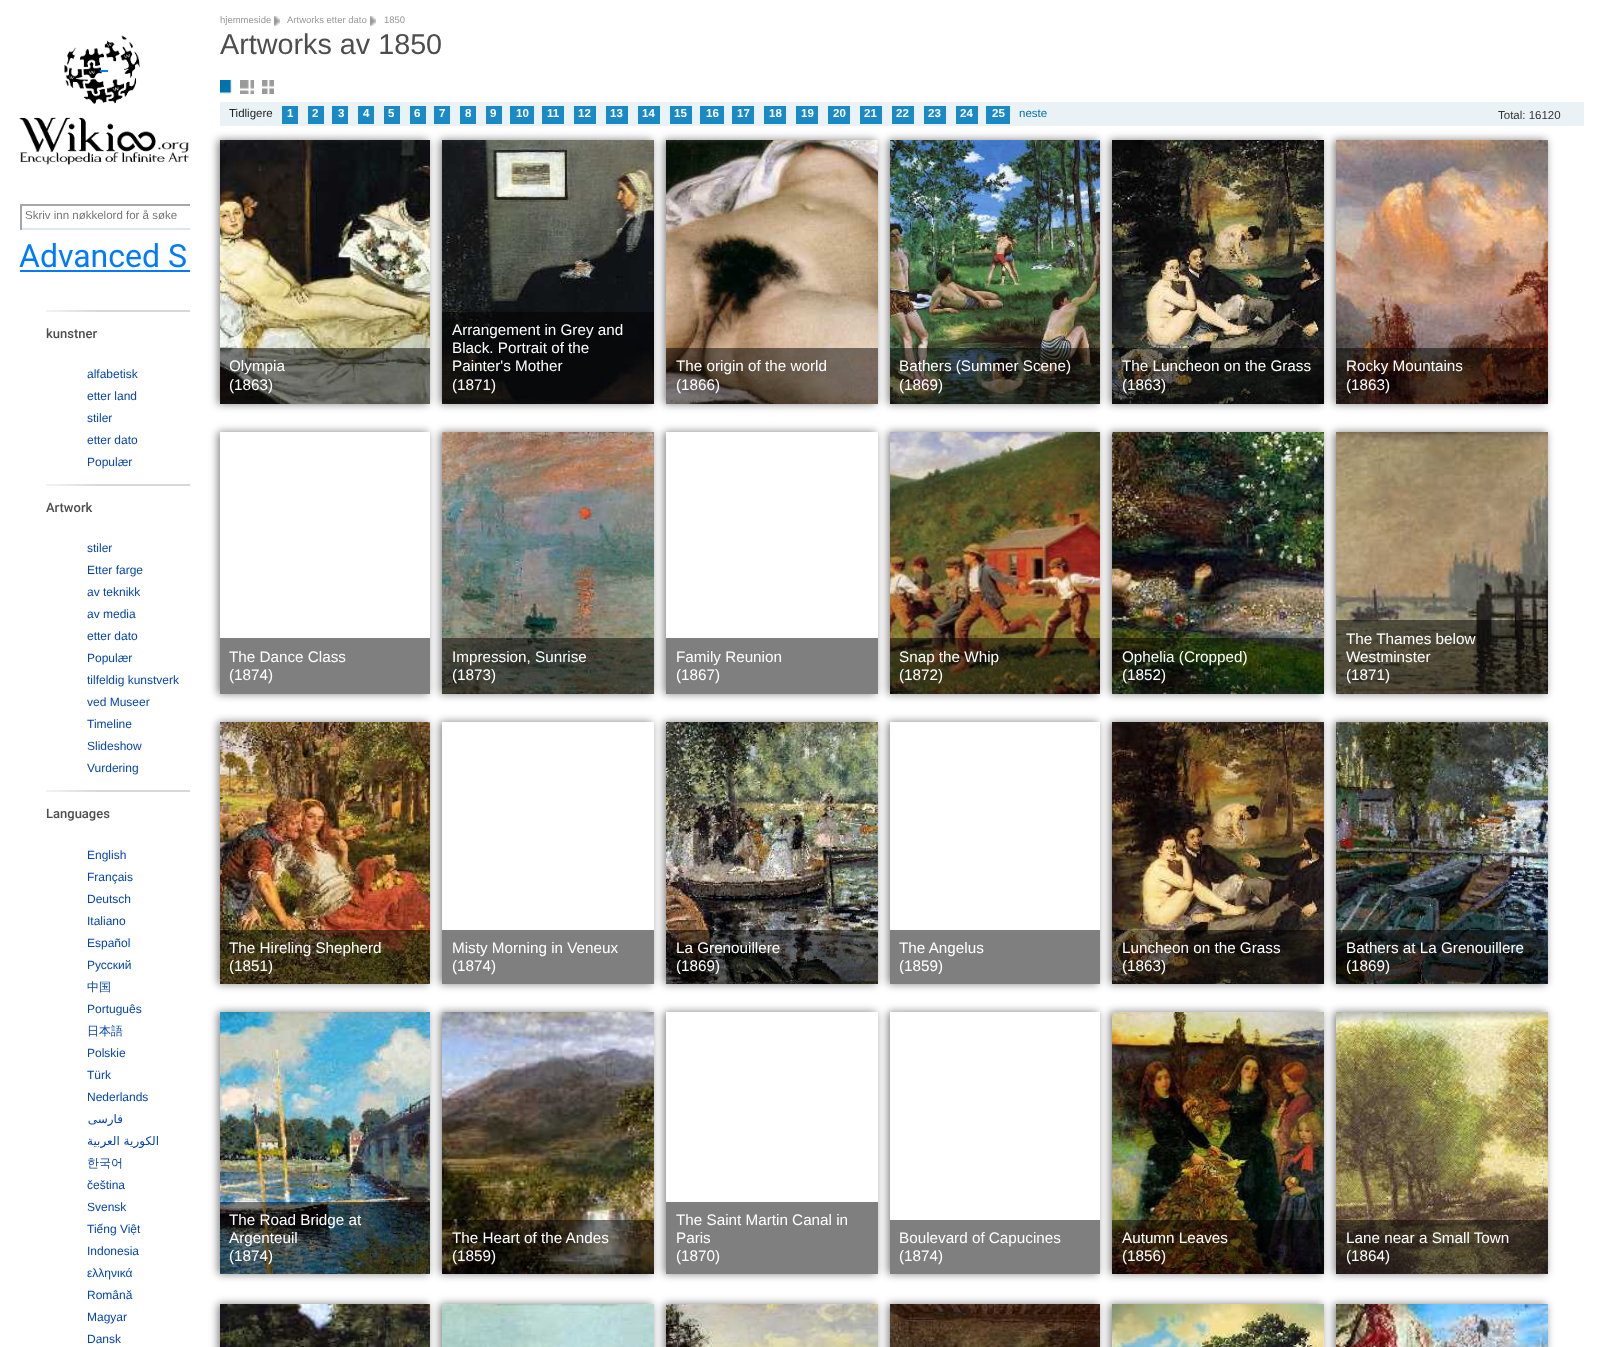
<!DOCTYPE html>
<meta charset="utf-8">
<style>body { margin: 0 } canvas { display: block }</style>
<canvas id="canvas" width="1604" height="1347"></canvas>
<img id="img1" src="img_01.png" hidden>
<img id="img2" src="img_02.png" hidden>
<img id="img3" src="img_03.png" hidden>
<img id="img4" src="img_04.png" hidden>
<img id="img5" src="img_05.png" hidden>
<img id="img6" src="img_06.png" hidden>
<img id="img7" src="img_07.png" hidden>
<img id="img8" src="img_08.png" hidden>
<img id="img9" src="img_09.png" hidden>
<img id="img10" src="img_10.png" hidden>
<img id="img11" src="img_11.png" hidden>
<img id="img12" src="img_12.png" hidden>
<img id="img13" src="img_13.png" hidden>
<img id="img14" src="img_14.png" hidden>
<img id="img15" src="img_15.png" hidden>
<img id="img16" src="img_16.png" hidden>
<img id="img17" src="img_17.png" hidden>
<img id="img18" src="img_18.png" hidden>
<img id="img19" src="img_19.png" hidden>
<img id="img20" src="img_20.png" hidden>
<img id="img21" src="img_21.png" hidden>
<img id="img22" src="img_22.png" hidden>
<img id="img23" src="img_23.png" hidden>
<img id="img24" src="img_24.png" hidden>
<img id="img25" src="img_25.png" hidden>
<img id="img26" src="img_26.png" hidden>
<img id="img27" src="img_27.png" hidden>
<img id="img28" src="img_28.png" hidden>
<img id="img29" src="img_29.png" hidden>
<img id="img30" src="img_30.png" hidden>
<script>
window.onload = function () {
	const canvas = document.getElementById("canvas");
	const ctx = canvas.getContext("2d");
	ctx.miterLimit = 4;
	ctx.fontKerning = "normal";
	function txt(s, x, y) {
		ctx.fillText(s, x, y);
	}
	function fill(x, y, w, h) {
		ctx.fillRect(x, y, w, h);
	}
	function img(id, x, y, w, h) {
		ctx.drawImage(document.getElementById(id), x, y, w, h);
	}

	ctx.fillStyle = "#FFFFFF";
	fill(0, 0, 1604, 1347);
	img("img1", 19, 35, 171, 130);
	ctx.fillStyle = "#007BFF";
	fill(100, 70, 8, 2);
	ctx.fillStyle = "#A6A6A6";
	fill(20, 204, 170, 2);
	ctx.fillStyle = "#DDE7EF";
	fill(20, 228, 170, 2);
	ctx.fillStyle = "#A6A6A6";
	fill(20, 204, 2, 26);
	ctx.fillStyle = "#007BFF";
	fill(20, 270, 170, 2);
	img("img2", 46, 310, 144, 2);
	img("img2", 46, 484, 144, 2);
	img("img2", 46, 790, 144, 2);
	img("img3", 274, 16, 6, 10);
	img("img3", 370, 16, 6, 10);
	img("img4", 220, 80, 12, 14);
	img("img5", 240, 80, 14, 14);
	img("img6", 262, 80, 12, 14);
	ctx.fillStyle = "#EBF2F6";
	fill(220, 102, 1364, 24);
	ctx.fillStyle = "#198AC5";
	fill(282, 106, 16, 18);
	fill(308, 106, 16, 18);
	fill(332, 106, 16, 18);
	fill(358, 106, 16, 18);
	fill(384, 106, 16, 18);
	fill(410, 106, 16, 18);
	fill(434, 106, 16, 18);
	fill(460, 106, 16, 18);
	fill(486, 106, 16, 18);
	fill(510, 106, 24, 18);
	fill(542, 106, 22, 18);
	fill(574, 106, 22, 18);
	fill(606, 106, 22, 18);
	fill(638, 106, 22, 18);
	fill(670, 106, 22, 18);
	fill(700, 106, 24, 18);
	fill(732, 106, 22, 18);
	fill(764, 106, 22, 18);
	fill(796, 106, 22, 18);
	fill(828, 106, 22, 18);
	fill(860, 106, 22, 18);
	fill(892, 106, 22, 18);
	fill(924, 106, 22, 18);
	fill(956, 106, 22, 18);
	fill(986, 106, 24, 18);
	ctx.fillStyle = "rgba(0, 0, 0, 0.5)";
	ctx.filter = "blur(4px)";
	ctx.beginPath();
	ctx.rect(218, 140, 210, 264);
	ctx.fill();
	ctx.filter = "none";
	ctx.filter = "blur(4px)";
	ctx.beginPath();
	ctx.rect(440, 140, 212, 264);
	ctx.fill();
	ctx.filter = "none";
	img("img7", 220, 140, 210, 264);
	fill(220, 348, 210, 56);
	ctx.filter = "blur(4px)";
	ctx.beginPath();
	ctx.rect(664, 140, 212, 264);
	ctx.fill();
	ctx.filter = "none";
	img("img8", 442, 140, 212, 264);
	fill(442, 312, 212, 92);
	ctx.filter = "blur(4px)";
	ctx.beginPath();
	ctx.rect(888, 140, 210, 264);
	ctx.fill();
	ctx.filter = "none";
	img("img9", 666, 140, 212, 264);
	fill(666, 348, 212, 56);
	ctx.filter = "blur(4px)";
	ctx.beginPath();
	ctx.rect(1110, 140, 212, 264);
	ctx.fill();
	ctx.filter = "none";
	img("img10", 890, 140, 210, 264);
	fill(890, 348, 210, 56);
	ctx.filter = "blur(4px)";
	ctx.beginPath();
	ctx.rect(1334, 140, 212, 264);
	ctx.fill();
	ctx.filter = "none";
	img("img11", 1112, 140, 212, 264);
	fill(1112, 348, 212, 56);
	img("img12", 1336, 140, 212, 264);
	fill(1336, 348, 212, 56);
	ctx.save();
	ctx.beginPath();
	ctx.moveTo(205, 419);
	ctx.lineTo(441, 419);
	ctx.lineTo(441, 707);
	ctx.lineTo(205, 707);
	ctx.closePath();
	ctx.moveTo(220, 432);
	ctx.lineTo(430, 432);
	ctx.lineTo(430, 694);
	ctx.lineTo(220, 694);
	ctx.closePath();
	ctx.clip("evenodd");
	ctx.filter = "blur(4px)";
	ctx.beginPath();
	ctx.rect(218, 432, 210, 262);
	ctx.fill();
	ctx.filter = "none";
	ctx.restore();
	ctx.filter = "blur(4px)";
	ctx.beginPath();
	ctx.rect(440, 432, 212, 262);
	ctx.fill();
	ctx.filter = "none";
	ctx.fillStyle = "#7F7F7F";
	fill(220, 638, 210, 56);
	ctx.save();
	ctx.beginPath();
	ctx.moveTo(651, 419);
	ctx.lineTo(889, 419);
	ctx.lineTo(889, 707);
	ctx.lineTo(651, 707);
	ctx.closePath();
	ctx.moveTo(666, 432);
	ctx.lineTo(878, 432);
	ctx.lineTo(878, 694);
	ctx.lineTo(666, 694);
	ctx.closePath();
	ctx.clip("evenodd");
	ctx.fillStyle = "rgba(0, 0, 0, 0.5)";
	ctx.filter = "blur(4px)";
	ctx.beginPath();
	ctx.rect(664, 432, 212, 262);
	ctx.fill();
	ctx.filter = "none";
	ctx.restore();
	img("img13", 442, 432, 212, 262);
	ctx.fillStyle = "rgba(0, 0, 0, 0.5)";
	fill(442, 638, 212, 56);
	ctx.filter = "blur(4px)";
	ctx.beginPath();
	ctx.rect(888, 432, 210, 262);
	ctx.fill();
	ctx.filter = "none";
	ctx.fillStyle = "#7F7F7F";
	fill(666, 638, 212, 56);
	ctx.fillStyle = "rgba(0, 0, 0, 0.5)";
	ctx.filter = "blur(4px)";
	ctx.beginPath();
	ctx.rect(1110, 432, 212, 262);
	ctx.fill();
	ctx.filter = "none";
	img("img14", 890, 432, 210, 262);
	fill(890, 638, 210, 56);
	ctx.filter = "blur(4px)";
	ctx.beginPath();
	ctx.rect(1334, 432, 212, 262);
	ctx.fill();
	ctx.filter = "none";
	img("img15", 1112, 432, 212, 262);
	fill(1112, 638, 212, 56);
	img("img16", 1336, 432, 212, 262);
	fill(1336, 620, 212, 74);
	ctx.filter = "blur(4px)";
	ctx.beginPath();
	ctx.rect(218, 722, 210, 262);
	ctx.fill();
	ctx.filter = "none";
	ctx.save();
	ctx.beginPath();
	ctx.moveTo(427, 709);
	ctx.lineTo(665, 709);
	ctx.lineTo(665, 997);
	ctx.lineTo(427, 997);
	ctx.closePath();
	ctx.moveTo(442, 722);
	ctx.lineTo(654, 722);
	ctx.lineTo(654, 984);
	ctx.lineTo(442, 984);
	ctx.closePath();
	ctx.clip("evenodd");
	ctx.filter = "blur(4px)";
	ctx.beginPath();
	ctx.rect(440, 722, 212, 262);
	ctx.fill();
	ctx.filter = "none";
	ctx.restore();
	img("img17", 220, 722, 210, 262);
	fill(220, 930, 210, 54);
	ctx.filter = "blur(4px)";
	ctx.beginPath();
	ctx.rect(664, 722, 212, 262);
	ctx.fill();
	ctx.filter = "none";
	ctx.fillStyle = "#7F7F7F";
	fill(442, 930, 212, 54);
	ctx.save();
	ctx.beginPath();
	ctx.moveTo(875, 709);
	ctx.lineTo(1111, 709);
	ctx.lineTo(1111, 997);
	ctx.lineTo(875, 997);
	ctx.closePath();
	ctx.moveTo(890, 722);
	ctx.lineTo(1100, 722);
	ctx.lineTo(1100, 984);
	ctx.lineTo(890, 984);
	ctx.closePath();
	ctx.clip("evenodd");
	ctx.fillStyle = "rgba(0, 0, 0, 0.5)";
	ctx.filter = "blur(4px)";
	ctx.beginPath();
	ctx.rect(888, 722, 210, 262);
	ctx.fill();
	ctx.filter = "none";
	ctx.restore();
	img("img18", 666, 722, 212, 262);
	ctx.fillStyle = "rgba(0, 0, 0, 0.5)";
	fill(666, 930, 212, 54);
	ctx.filter = "blur(4px)";
	ctx.beginPath();
	ctx.rect(1110, 722, 212, 262);
	ctx.fill();
	ctx.filter = "none";
	ctx.fillStyle = "#7F7F7F";
	fill(890, 930, 210, 54);
	ctx.fillStyle = "rgba(0, 0, 0, 0.5)";
	ctx.filter = "blur(4px)";
	ctx.beginPath();
	ctx.rect(1334, 722, 212, 262);
	ctx.fill();
	ctx.filter = "none";
	img("img19", 1112, 722, 212, 262);
	fill(1112, 930, 212, 54);
	img("img20", 1336, 722, 212, 262);
	fill(1336, 930, 212, 54);
	ctx.filter = "blur(4px)";
	ctx.beginPath();
	ctx.rect(218, 1012, 210, 262);
	ctx.fill();
	ctx.filter = "none";
	ctx.filter = "blur(4px)";
	ctx.beginPath();
	ctx.rect(440, 1012, 212, 262);
	ctx.fill();
	ctx.filter = "none";
	img("img21", 220, 1012, 210, 262);
	fill(220, 1202, 210, 72);
	ctx.save();
	ctx.beginPath();
	ctx.moveTo(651, 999);
	ctx.lineTo(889, 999);
	ctx.lineTo(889, 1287);
	ctx.lineTo(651, 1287);
	ctx.closePath();
	ctx.moveTo(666, 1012);
	ctx.lineTo(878, 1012);
	ctx.lineTo(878, 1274);
	ctx.lineTo(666, 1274);
	ctx.closePath();
	ctx.clip("evenodd");
	ctx.filter = "blur(4px)";
	ctx.beginPath();
	ctx.rect(664, 1012, 212, 262);
	ctx.fill();
	ctx.filter = "none";
	ctx.restore();
	img("img22", 442, 1012, 212, 262);
	fill(442, 1220, 212, 54);
	ctx.save();
	ctx.beginPath();
	ctx.moveTo(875, 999);
	ctx.lineTo(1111, 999);
	ctx.lineTo(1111, 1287);
	ctx.lineTo(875, 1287);
	ctx.closePath();
	ctx.moveTo(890, 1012);
	ctx.lineTo(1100, 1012);
	ctx.lineTo(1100, 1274);
	ctx.lineTo(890, 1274);
	ctx.closePath();
	ctx.clip("evenodd");
	ctx.filter = "blur(4px)";
	ctx.beginPath();
	ctx.rect(888, 1012, 210, 262);
	ctx.fill();
	ctx.filter = "none";
	ctx.restore();
	ctx.fillStyle = "#7F7F7F";
	fill(666, 1202, 212, 72);
	ctx.fillStyle = "rgba(0, 0, 0, 0.5)";
	ctx.filter = "blur(4px)";
	ctx.beginPath();
	ctx.rect(1110, 1012, 212, 262);
	ctx.fill();
	ctx.filter = "none";
	ctx.fillStyle = "#7F7F7F";
	fill(890, 1220, 210, 54);
	ctx.fillStyle = "rgba(0, 0, 0, 0.5)";
	ctx.filter = "blur(4px)";
	ctx.beginPath();
	ctx.rect(1334, 1012, 212, 262);
	ctx.fill();
	ctx.filter = "none";
	img("img23", 1112, 1012, 212, 262);
	fill(1112, 1220, 212, 54);
	img("img24", 1336, 1012, 212, 262);
	fill(1336, 1220, 212, 54);
	ctx.filter = "blur(4px)";
	ctx.beginPath();
	ctx.rect(218, 1304, 210, 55);
	ctx.fill();
	ctx.filter = "none";
	ctx.filter = "blur(4px)";
	ctx.beginPath();
	ctx.rect(440, 1304, 212, 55);
	ctx.fill();
	ctx.filter = "none";
	img("img25", 220, 1304, 210, 43);
	ctx.filter = "blur(4px)";
	ctx.beginPath();
	ctx.rect(664, 1304, 212, 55);
	ctx.fill();
	ctx.filter = "none";
	img("img26", 442, 1304, 212, 43);
	ctx.filter = "blur(4px)";
	ctx.beginPath();
	ctx.rect(888, 1304, 210, 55);
	ctx.fill();
	ctx.filter = "none";
	img("img27", 666, 1304, 212, 43);
	ctx.filter = "blur(4px)";
	ctx.beginPath();
	ctx.rect(1110, 1304, 212, 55);
	ctx.fill();
	ctx.filter = "none";
	img("img28", 890, 1304, 210, 43);
	ctx.filter = "blur(4px)";
	ctx.beginPath();
	ctx.rect(1334, 1304, 212, 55);
	ctx.fill();
	ctx.filter = "none";
	img("img29", 1112, 1304, 212, 43);
	img("img30", 1336, 1304, 212, 43);
	ctx.font = "11.5px Liberation Sans";
	ctx.fillStyle = "#757575";
	txt("Skriv inn nøkkelord for å søke", 25, 219);
	ctx.font = "32px Roboto";
	ctx.fillStyle = "#007BFF";
	txt("Advanced S", 19, 267);
	ctx.font = "500 13px Roboto";
	ctx.fillStyle = "#4D4D4D";
	txt("kunstner", 46, 338);
	ctx.font = "12px Liberation Sans";
	ctx.fillStyle = "#0645AD";
	txt("alfabetisk", 87, 378);
	txt("etter land", 87, 400);
	txt("stiler", 87, 422);
	txt("etter dato", 87, 444);
	txt("Populær", 87, 466);
	ctx.font = "500 13px Roboto";
	ctx.fillStyle = "#4D4D4D";
	txt("Artwork", 46, 512);
	ctx.font = "12px Liberation Sans";
	ctx.fillStyle = "#0645AD";
	txt("stiler", 87, 552);
	txt("Etter farge", 87, 574);
	txt("av teknikk", 87, 596);
	txt("av media", 87, 618);
	txt("etter dato", 87, 640);
	txt("Populær", 87, 662);
	txt("tilfeldig kunstverk", 87, 684);
	txt("ved Museer", 87, 706);
	txt("Timeline", 87, 728);
	txt("Slideshow", 87, 750);
	txt("Vurdering", 87, 772);
	ctx.font = "500 13px Roboto";
	ctx.fillStyle = "#4D4D4D";
	txt("Languages", 46, 818);
	ctx.font = "12px Liberation Sans";
	ctx.fillStyle = "#0645AD";
	txt("English", 87, 859);
	txt("Français", 87, 881);
	txt("Deutsch", 87, 903);
	txt("Italiano", 87, 925);
	txt("Español", 87, 947);
	txt("Русский", 87, 969);
	ctx.font = "500 12px WenQuanYi Zen Hei";
	txt("中国", 87, 991);
	ctx.font = "12px Liberation Sans";
	txt("Português", 87, 1013);
	ctx.font = "500 12px WenQuanYi Zen Hei";
	txt("日本語", 87, 1035);
	ctx.font = "12px Liberation Sans";
	txt("Polskie", 87, 1057);
	txt("Türk", 87, 1079);
	txt("Nederlands", 87, 1101);
	ctx.direction = "rtl";
	ctx.font = "12px DejaVu Sans";
	txt("فارسی", 123, 1123);
	txt("الكورية العربية", 159, 1145);
	ctx.direction = "ltr";
	ctx.font = "500 12px WenQuanYi Zen Hei";
	txt("한국어", 87, 1167);
	ctx.font = "12px Liberation Sans";
	txt("čeština", 87, 1189);
	txt("Svensk", 87, 1211);
	txt("Tiếng Việt", 87, 1233);
	txt("Indonesia", 87, 1255);
	txt("ελληνικά", 87, 1277);
	txt("Română", 87, 1299);
	txt("Magyar", 87, 1321);
	txt("Dansk", 87, 1343);
	ctx.font = "9.5px Liberation Sans";
	ctx.fillStyle = "#999999";
	txt("hjemmeside", 220, 23);
	txt("Artworks etter dato", 287, 23);
	txt("1850", 384, 23);
	ctx.font = "28.75px Liberation Sans";
	ctx.fillStyle = "#4D4D4D";
	txt("Artworks av 1850", 220, 54);
	ctx.font = "11.5px Liberation Sans";
	ctx.fillStyle = "#212529";
	txt("Tidligere", 229, 117);
	ctx.font = "bold 11.5px Liberation Sans";
	ctx.fillStyle = "#FFFFFF";
	txt("1", 287, 117);
	txt("2", 312, 117);
	txt("3", 338, 117);
	txt("4", 363, 117);
	txt("5", 388, 117);
	txt("6", 414, 117);
	txt("7", 439, 117);
	txt("8", 465, 117);
	txt("9", 490, 117);
	txt("10", 516, 117);
	txt("11", 547, 117);
	txt("12", 578, 117);
	txt("13", 610, 117);
	txt("14", 642, 117);
	txt("15", 674, 117);
	txt("16", 706, 117);
	txt("17", 737, 117);
	txt("18", 769, 117);
	txt("19", 801, 117);
	txt("20", 833, 117);
	txt("21", 864, 117);
	txt("22", 896, 117);
	txt("23", 928, 117);
	txt("24", 960, 117);
	txt("25", 992, 117);
	ctx.font = "11.5px Liberation Sans";
	ctx.fillStyle = "#0071AB";
	txt("neste", 1019, 117);
	ctx.fillStyle = "#333333";
	txt("Total: 16120", 1498, 119);
	ctx.save();
	ctx.beginPath();
	ctx.rect(230, 358, 192, 36);
	ctx.clip();
	ctx.font = "15.25px Liberation Sans";
	ctx.fillStyle = "#FFFFFF";
	txt("Olympia", 229, 371);
	ctx.restore();
	ctx.font = "15.25px Liberation Sans";
	ctx.fillStyle = "#FFFFFF";
	txt("(1863)", 229, 390);
	txt("Arrangement in Grey and", 452, 335);
	txt("Black. Portrait of the", 452, 353);
	txt("Painter's Mother", 452, 371);
	txt("(1871)", 452, 390);
	txt("The origin of the world", 676, 371);
	txt("(1866)", 676, 390);
	txt("Bathers (Summer Scene)", 899, 371);
	txt("(1869)", 899, 390);
	txt("The Luncheon on the Grass", 1122, 371);
	txt("(1863)", 1122, 390);
	txt("Rocky Mountains", 1346, 371);
	txt("(1863)", 1346, 390);
	txt("The Dance Class", 229, 662);
	txt("(1874)", 229, 680);
	txt("Impression, Sunrise", 452, 662);
	txt("(1873)", 452, 680);
	txt("Family Reunion", 676, 662);
	txt("(1867)", 676, 680);
	txt("Snap the Whip", 899, 662);
	txt("(1872)", 899, 680);
	txt("Ophelia (Cropped)", 1122, 662);
	txt("(1852)", 1122, 680);
	txt("The Thames below", 1346, 644);
	txt("Westminster", 1346, 662);
	txt("(1871)", 1346, 680);
	txt("The Hireling Shepherd", 229, 953);
	ctx.save();
	ctx.beginPath();
	ctx.rect(230, 938, 192, 36);
	ctx.clip();
	txt("(1851)", 229, 971);
	ctx.restore();
	txt("Misty Morning in Veneux", 452, 953);
	txt("(1874)", 452, 971);
	txt("La Grenouillere", 676, 953);
	ctx.save();
	ctx.beginPath();
	ctx.rect(676, 938, 192, 36);
	ctx.clip();
	txt("(1869)", 676, 971);
	ctx.restore();
	txt("The Angelus", 899, 953);
	ctx.save();
	ctx.beginPath();
	ctx.rect(900, 938, 192, 36);
	ctx.clip();
	txt("(1859)", 899, 971);
	ctx.restore();
	txt("Luncheon on the Grass", 1122, 953);
	txt("(1863)", 1122, 971);
	txt("Bathers at La Grenouillere", 1346, 953);
	ctx.save();
	ctx.beginPath();
	ctx.rect(1346, 938, 192, 36);
	ctx.clip();
	txt("(1869)", 1346, 971);
	ctx.restore();
	txt("The Road Bridge at", 229, 1225);
	txt("Argenteuil", 229, 1243);
	txt("(1874)", 229, 1261);
	txt("The Heart of the Andes", 452, 1243);
	txt("(1859)", 452, 1261);
	txt("The Saint Martin Canal in", 676, 1225);
	txt("Paris", 676, 1243);
	txt("(1870)", 676, 1261);
	txt("Boulevard of Capucines", 899, 1243);
	txt("(1874)", 899, 1261);
	txt("Autumn Leaves", 1122, 1243);
	txt("(1856)", 1122, 1261);
	txt("Lane near a Small Town", 1346, 1243);
	txt("(1864)", 1346, 1261);
};
</script>
